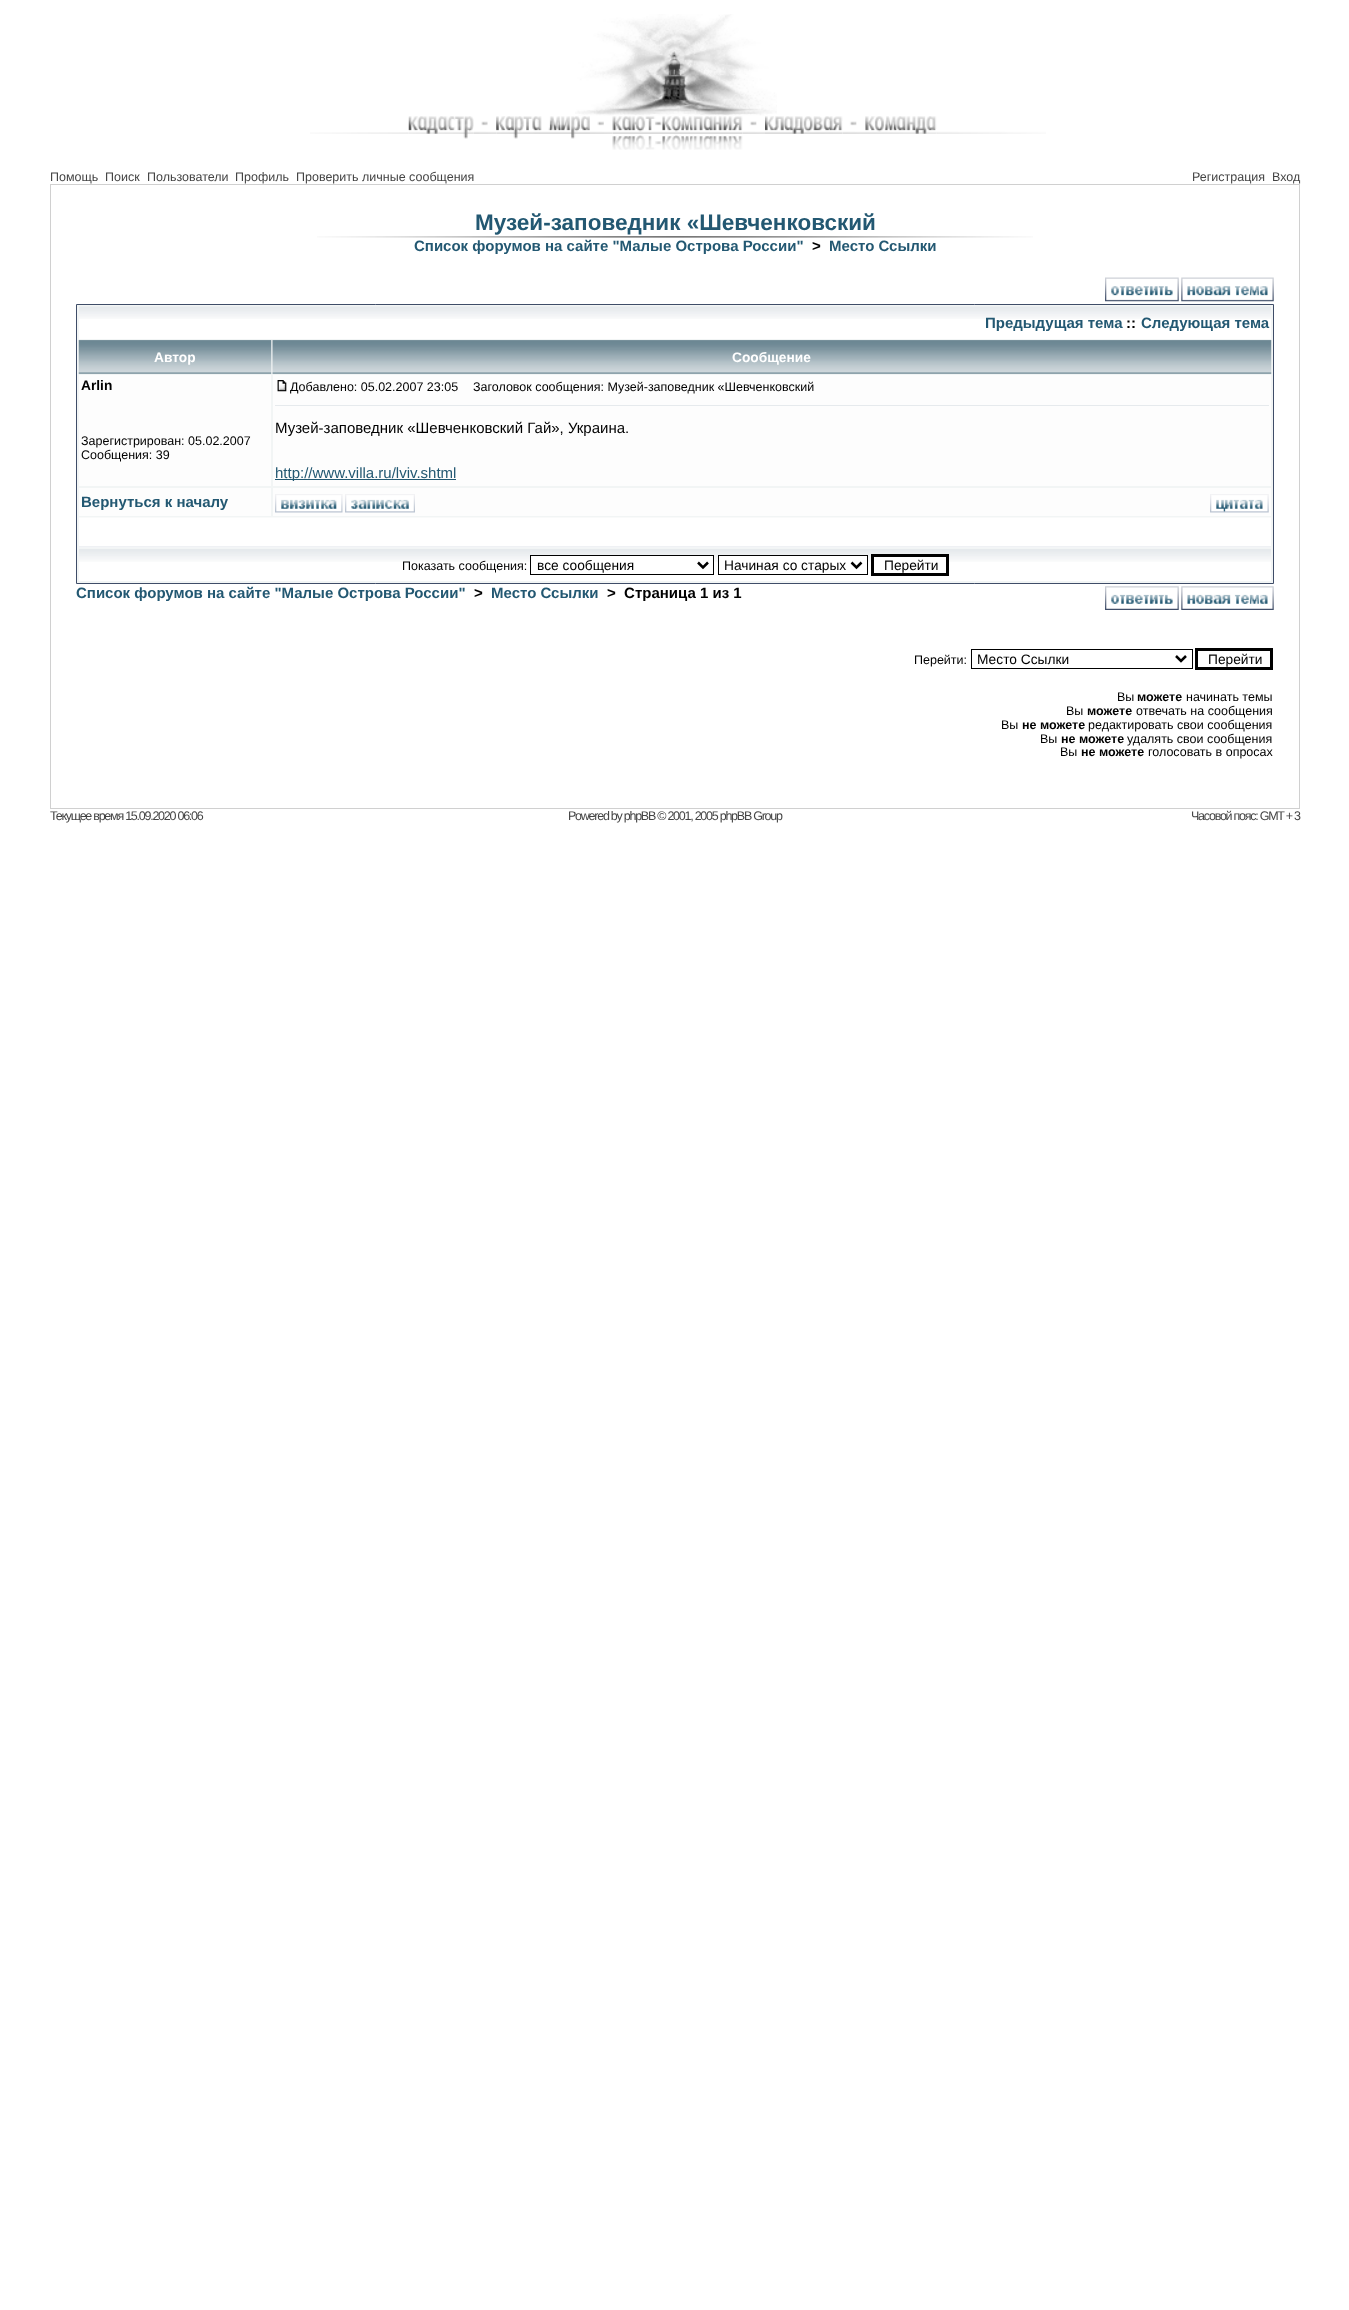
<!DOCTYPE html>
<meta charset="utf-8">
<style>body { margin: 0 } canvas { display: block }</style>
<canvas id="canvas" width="1349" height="2310"></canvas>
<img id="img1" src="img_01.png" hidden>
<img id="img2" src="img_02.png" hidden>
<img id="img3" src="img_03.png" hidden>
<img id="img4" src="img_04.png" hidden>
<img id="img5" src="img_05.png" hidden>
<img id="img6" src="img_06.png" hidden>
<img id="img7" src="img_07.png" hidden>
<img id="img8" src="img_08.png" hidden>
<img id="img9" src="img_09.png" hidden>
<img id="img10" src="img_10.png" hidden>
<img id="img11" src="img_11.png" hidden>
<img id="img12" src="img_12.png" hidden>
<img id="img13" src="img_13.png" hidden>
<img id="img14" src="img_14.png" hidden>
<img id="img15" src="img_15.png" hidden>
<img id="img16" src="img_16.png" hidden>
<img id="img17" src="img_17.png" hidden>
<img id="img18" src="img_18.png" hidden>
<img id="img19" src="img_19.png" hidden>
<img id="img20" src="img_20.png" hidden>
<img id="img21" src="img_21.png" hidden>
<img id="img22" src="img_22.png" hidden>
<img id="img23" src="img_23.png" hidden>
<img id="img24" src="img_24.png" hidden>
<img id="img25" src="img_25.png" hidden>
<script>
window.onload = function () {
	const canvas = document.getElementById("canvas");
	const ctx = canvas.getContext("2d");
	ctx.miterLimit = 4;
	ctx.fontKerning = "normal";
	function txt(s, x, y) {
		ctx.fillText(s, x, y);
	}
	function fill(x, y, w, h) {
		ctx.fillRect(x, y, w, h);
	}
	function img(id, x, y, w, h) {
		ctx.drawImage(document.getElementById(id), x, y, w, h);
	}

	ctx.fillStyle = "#FFFFFF";
	fill(0, 0, 1349, 2310);
	img("img1", 575, 14, 202, 102);
	img("img2", 310, 132, 99, 2);
	img("img3", 408, 116, 66, 23);
	img("img4", 473, 121, 24, 13);
	img("img5", 496, 116, 94, 23);
	img("img6", 590, 121, 23, 13);
	img("img7", 612, 116, 131, 34);
	img("img8", 742, 121, 23, 13);
	img("img9", 765, 116, 78, 18);
	img("img8", 842, 121, 23, 13);
	img("img10", 865, 116, 72, 18);
	img("img11", 936, 129, 110, 5);
	ctx.fillStyle = "#D0D0D0";
	fill(50, 184, 1250, 625);
	ctx.fillStyle = "#FFFFFF";
	fill(51, 185, 1248, 623);
	img("img12", 317, 236, 716, 2);
	img("img13", 1105, 277, 74, 25);
	img("img14", 1181, 277, 93, 25);
	ctx.fillStyle = "#F2F5F5";
	ctx.beginPath();
	ctx.rect(76.5, 304.5, 1197, 279);
	ctx.fill();
	ctx.strokeStyle = "#3F4D68";
	ctx.stroke();
	ctx.fillStyle = "#FFFFFF";
	fill(79, 306, 1192, 33);
	img("img15", 79, 306, 1192, 13);
	img("img16", 78, 340, 194, 34);
	img("img17", 272, 340, 1000, 34);
	ctx.fillStyle = "#FDFDFD";
	fill(79, 375, 192, 111);
	fill(273, 375, 998, 111);
	img("img18", 277, 380, 10, 12);
	ctx.fillStyle = "#E6EAED";
	fill(275, 405, 994, 1);
	ctx.fillStyle = "#235872";
	fill(275, 479, 181, 1);
	ctx.fillStyle = "#FDFDFD";
	fill(79, 488, 192, 28);
	fill(273, 488, 998, 28);
	img("img19", 275, 494, 68, 19);
	img("img20", 345, 494, 70, 19);
	img("img21", 1210, 494, 59, 19);
	ctx.fillStyle = "#FFFFFF";
	fill(79, 547, 1192, 1);
	img("img22", 79, 517, 1192, 31);
	fill(79, 562, 1192, 19);
	img("img23", 79, 549, 1192, 13);
	fill(531, 556, 182, 6);
	ctx.strokeStyle = "#000000";
	ctx.strokeRect(530.5, 555.5, 183, 19);
	ctx.beginPath();
	ctx.moveTo(698, 562.5);
	ctx.lineTo(703, 567.5);
	ctx.lineTo(708, 562.5);
	ctx.lineWidth = 2.5;
	ctx.stroke();
	fill(719, 556, 148, 6);
	ctx.lineWidth = 1;
	ctx.strokeRect(718.5, 555.5, 149, 19);
	ctx.beginPath();
	ctx.moveTo(851.5, 562.5);
	ctx.lineTo(856.5, 567.5);
	ctx.lineTo(861.5, 562.5);
	ctx.lineWidth = 2.5;
	ctx.stroke();
	fill(874, 557, 72, 5);
	ctx.lineWidth = 3;
	ctx.strokeRect(872.5, 555.5, 75, 19);
	img("img24", 1105, 586, 74, 24);
	img("img25", 1181, 586, 93, 24);
	ctx.lineWidth = 1;
	ctx.strokeRect(971.5, 649.5, 221, 19);
	ctx.beginPath();
	ctx.moveTo(1176, 656);
	ctx.lineTo(1181, 661);
	ctx.lineTo(1186, 656);
	ctx.lineWidth = 2.5;
	ctx.stroke();
	ctx.lineWidth = 3;
	ctx.strokeRect(1196.5, 649.5, 75, 19);
	ctx.font = "12.5px Liberation Sans";
	ctx.fillStyle = "#444444";
	txt("Помощь", 50, 181);
	txt("Поиск", 105, 181);
	txt("Пользователи", 147, 181);
	txt("Профиль", 235, 181);
	txt("Проверить личные сообщения", 296, 181);
	txt("Регистрация", 1192, 181);
	txt("Вход", 1272, 181);
	ctx.font = "bold 22.5px Liberation Sans";
	ctx.fillStyle = "#235872";
	txt("Музей-заповедник «Шевченковский", 475, 230);
	ctx.font = "bold 15px Liberation Sans";
	txt("Список форумов на сайте \"Малые Острова России\"", 414, 251);
	ctx.fillStyle = "#000000";
	txt(">", 812, 251);
	ctx.fillStyle = "#235872";
	txt("Место Ссылки", 829, 251);
	txt("Предыдущая тема", 985, 328);
	ctx.fillStyle = "#000000";
	txt("::", 1126, 328);
	ctx.fillStyle = "#235872";
	txt("Следующая тема", 1141, 328);
	ctx.font = "bold 13.75px Liberation Sans";
	ctx.fillStyle = "#FFFFFF";
	txt("Автор", 154, 362);
	txt("Сообщение", 732, 362);
	ctx.fillStyle = "#000000";
	txt("Arlin", 81, 390);
	ctx.font = "12.5px Liberation Sans";
	txt("Зарегистрирован: 05.02.2007", 81, 445);
	txt("Сообщения: 39", 81, 459);
	txt("Добавлено: 05.02.2007 23:05", 290, 391);
	txt("Заголовок сообщения: Музей-заповедник «Шевченковский", 473, 391);
	ctx.font = "15px Liberation Sans";
	txt("Музей-заповедник «Шевченковский Гай», Украина.", 275, 433);
	ctx.fillStyle = "#235872";
	txt("http://www.villa.ru/lviv.shtml", 275, 478);
	ctx.font = "bold 15px Liberation Sans";
	txt("Вернуться к началу", 81, 507);
	ctx.font = "12.5px Liberation Sans";
	ctx.fillStyle = "#000000";
	txt("Показать сообщения:", 402, 570);
	ctx.font = "13.75px Liberation Sans";
	txt("все сообщения", 537, 570);
	txt("Начиная со старых", 724, 570);
	txt("Перейти", 884, 570);
	ctx.font = "bold 15px Liberation Sans";
	ctx.fillStyle = "#235872";
	txt("Список форумов на сайте \"Малые Острова России\"", 76, 598);
	ctx.fillStyle = "#000000";
	txt(">", 474, 598);
	ctx.fillStyle = "#235872";
	txt("Место Ссылки", 491, 598);
	ctx.fillStyle = "#000000";
	txt(">  Страница 1 из 1", 607, 598);
	ctx.font = "12.5px Liberation Sans";
	txt("Перейти:", 914, 664);
	ctx.font = "13.75px Liberation Sans";
	txt("Место Ссылки", 977, 664);
	txt("Перейти", 1208, 664);
	ctx.font = "12.5px Liberation Sans";
	txt("Вы", 1117, 701);
	ctx.font = "bold 12.5px Liberation Sans";
	txt("можете", 1137, 701);
	ctx.font = "12.5px Liberation Sans";
	txt("начинать темы", 1186, 701);
	txt("Вы", 1066, 715);
	ctx.font = "bold 12.5px Liberation Sans";
	txt("можете", 1087, 715);
	ctx.font = "12.5px Liberation Sans";
	txt("отвечать на сообщения", 1136, 715);
	txt("Вы", 1001, 729);
	ctx.font = "bold 12.5px Liberation Sans";
	txt("не можете", 1022, 729);
	ctx.font = "12.5px Liberation Sans";
	txt("редактировать свои сообщения", 1088, 729);
	txt("Вы", 1040, 743);
	ctx.font = "bold 12.5px Liberation Sans";
	txt("не можете", 1061, 743);
	ctx.font = "12.5px Liberation Sans";
	txt("удалять свои сообщения", 1127, 743);
	txt("Вы", 1060, 756);
	ctx.font = "bold 12.5px Liberation Sans";
	txt("не можете", 1081, 756);
	ctx.font = "12.5px Liberation Sans";
	txt("голосовать в опросах", 1148, 756);
	ctx.letterSpacing = "-1.25px";
	ctx.fillStyle = "#444444";
	txt("Текущее время 15.09.2020 06:06", 50, 820);
	txt("Powered by phpBB © 2001, 2005 phpBB Group", 568, 820);
	txt("Часовой пояс: GMT + 3", 1191, 820);
};
</script>
